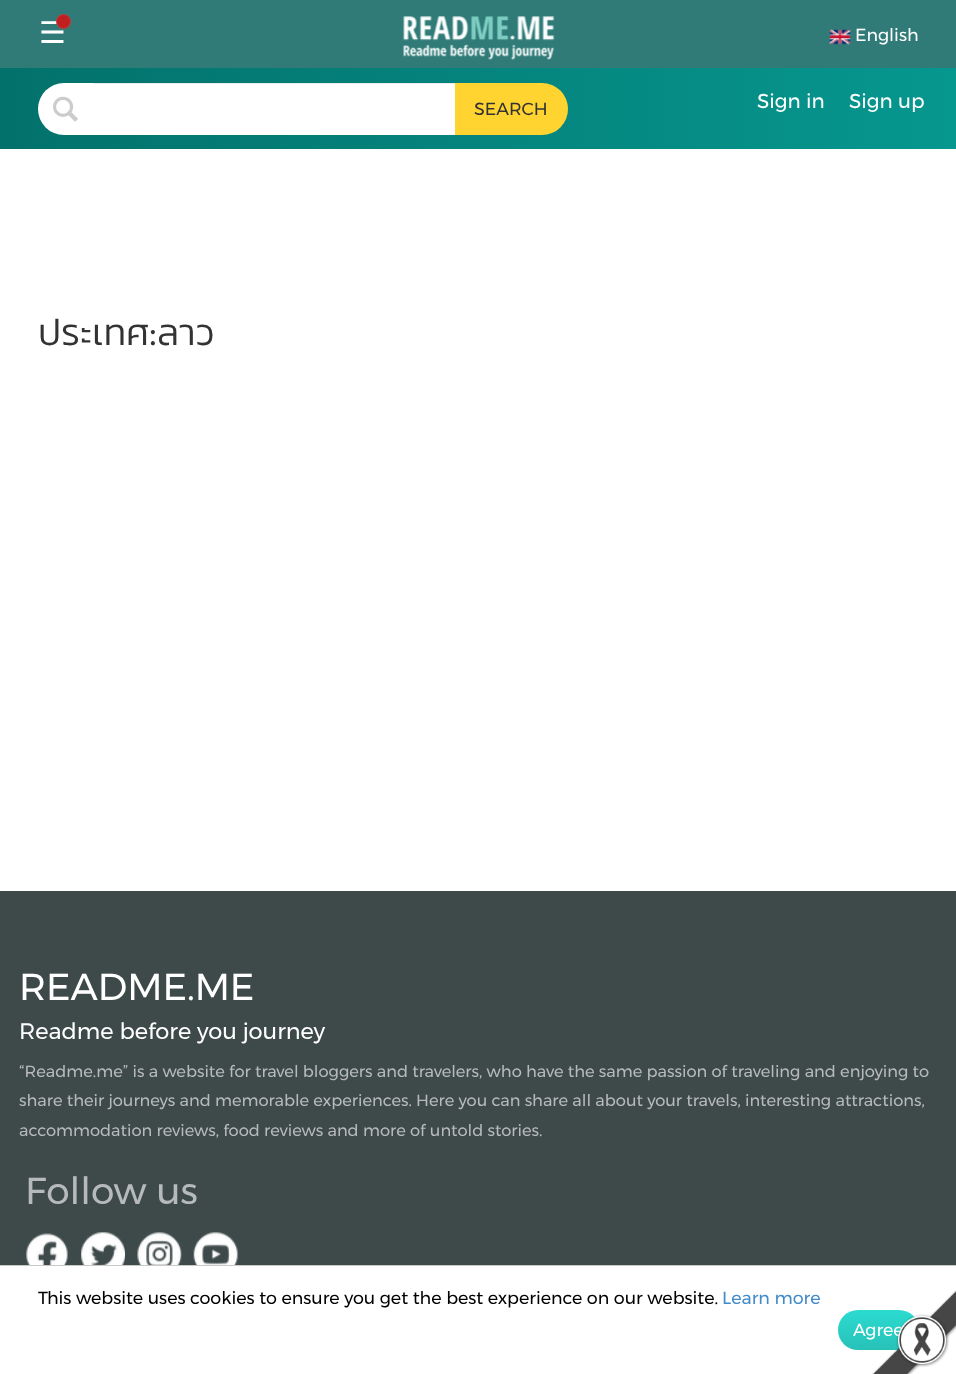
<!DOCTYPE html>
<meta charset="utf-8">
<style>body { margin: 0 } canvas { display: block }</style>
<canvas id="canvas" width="956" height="1374"></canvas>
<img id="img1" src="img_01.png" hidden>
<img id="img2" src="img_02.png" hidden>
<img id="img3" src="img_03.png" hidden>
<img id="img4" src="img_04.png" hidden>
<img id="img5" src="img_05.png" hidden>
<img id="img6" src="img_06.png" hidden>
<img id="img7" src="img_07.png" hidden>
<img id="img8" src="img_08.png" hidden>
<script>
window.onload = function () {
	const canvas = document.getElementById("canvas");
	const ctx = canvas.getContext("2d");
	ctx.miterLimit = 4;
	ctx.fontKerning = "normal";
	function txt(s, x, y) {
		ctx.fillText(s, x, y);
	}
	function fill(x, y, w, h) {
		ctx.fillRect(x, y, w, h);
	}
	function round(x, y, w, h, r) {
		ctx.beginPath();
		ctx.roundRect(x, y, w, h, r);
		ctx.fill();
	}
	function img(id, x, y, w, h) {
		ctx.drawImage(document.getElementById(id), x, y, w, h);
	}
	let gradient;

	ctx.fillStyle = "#FFFFFF";
	fill(0, 0, 956, 1374);
	gradient = ctx.createLinearGradient(0, 74, 956, 74);
	gradient.addColorStop(0, "#03716B");
	gradient.addColorStop(1, "#06978F");
	ctx.fillStyle = gradient;
	fill(0, 68, 956, 81);
	ctx.fillStyle = "#307B78";
	fill(0, 0, 956, 68);
	img("img1", 829, 29, 22, 16);
	img("img2", 403, 16, 152, 44);
	ctx.fillStyle = "#FFFFFF";
	ctx.beginPath();
	ctx.roundRect(38, 83, 55, 52, [26, 0, 0, 26]);
	ctx.fill();
	img("img3", 53, 96, 25, 26);
	fill(93, 84, 362, 51);
	ctx.fillStyle = "#ECECEC";
	fill(93, 83, 362, 1);
	ctx.fillStyle = "#FFD431";
	ctx.beginPath();
	ctx.roundRect(455, 83, 113, 52, [0, 26, 26, 0]);
	ctx.fill();
	ctx.fillStyle = "#3E4A49";
	fill(0, 891, 956, 374);
	img("img4", 26, 1233, 42, 32);
	img("img5", 81, 1232, 44, 33);
	img("img6", 137, 1232, 45, 33);
	img("img7", 193, 1232, 45, 33);
	ctx.fillStyle = "#C8C8C8";
	fill(0, 1265, 956, 1);
	gradient = ctx.createLinearGradient(878, 1310, 878, 1350);
	gradient.addColorStop(0, "#2BDBD0");
	gradient.addColorStop(1, "#28C1B8");
	ctx.fillStyle = gradient;
	round(838, 1310, 81, 40, 20);
	ctx.font = "30px DejaVu Sans";
	ctx.fillStyle = "#FFFFFF";
	txt("☰", 39, 43);
	ctx.fillStyle = "#BF1F1F";
	ctx.beginPath();
	ctx.arc(63.5, 21.5, 7, 0, Math.PI * 2);
	ctx.fill();
	ctx.strokeStyle = "#C93A3A";
	ctx.stroke();
	ctx.font = "17.5px Montserrat";
	ctx.fillStyle = "#FFFFFF";
	txt("English", 855, 41);
	ctx.fillStyle = "#333333";
	txt("SEARCH", 474, 115);
	ctx.font = "20px Montserrat";
	ctx.fillStyle = "#FFFFFF";
	txt("Sign in", 757, 108);
	txt("Sign up", 849, 108);
	ctx.font = "300 37.5px Kanit";
	ctx.fillStyle = "#333333";
	txt("ประเทศ", 38, 345);
	ctx.font = "37.5px Montserrat";
	txt(":", 149, 345);
	ctx.font = "300 37.5px Kanit";
	txt("ลาว", 157, 345);
	ctx.font = "37.5px Montserrat";
	ctx.fillStyle = "#FFFFFF";
	txt("README.ME", 19, 1000);
	ctx.font = "22.5px Montserrat";
	txt("Readme before you journey", 19, 1039);
	ctx.font = "16.25px Montserrat";
	ctx.fillStyle = "#B6BABA";
	txt("“Readme.me” is a website for travel bloggers and travelers, who have the same passion of traveling and enjoying to", 19, 1077);
	txt("share their journeys and memorable experiences. Here you can share all about your travels, interesting attractions,", 19, 1106);
	txt("accommodation reviews, food reviews and more of untold stories.", 19, 1136);
	ctx.font = "37.5px Montserrat";
	txt("Follow us", 25, 1204);
	ctx.font = "17.5px Montserrat";
	ctx.fillStyle = "#000000";
	txt("This website uses cookies to ensure you get the best experience on our website.", 38, 1304);
	ctx.fillStyle = "#428BCA";
	txt("Learn more", 722, 1304);
	ctx.fillStyle = "#FFFFFF";
	txt("Agree", 853, 1336);
	img("img8", 872, 1290, 84, 84);
};
</script>
